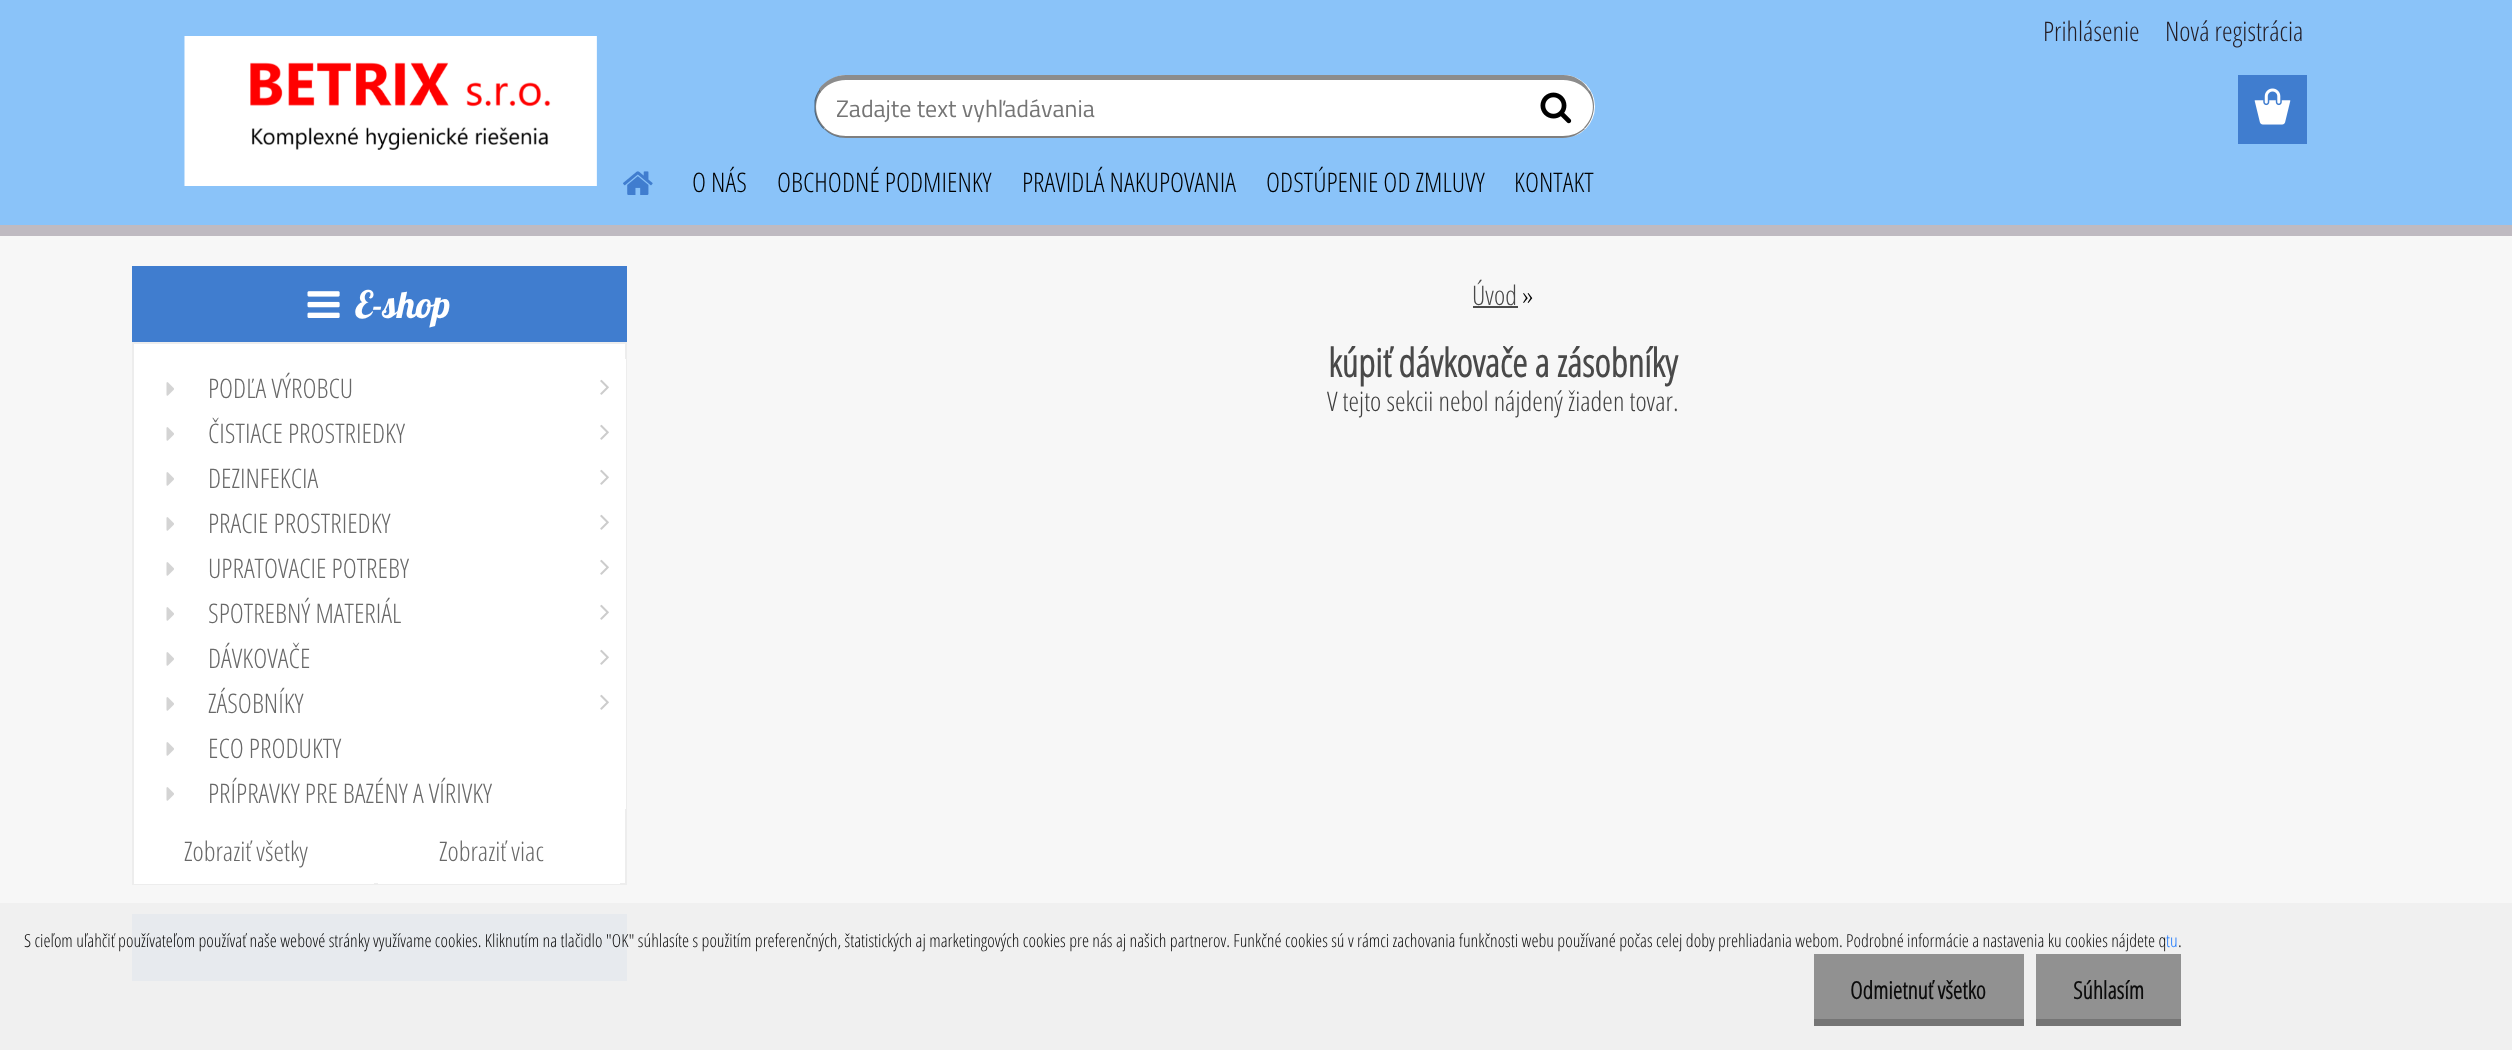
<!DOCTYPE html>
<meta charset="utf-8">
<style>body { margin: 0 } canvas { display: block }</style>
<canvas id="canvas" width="2512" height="1050"></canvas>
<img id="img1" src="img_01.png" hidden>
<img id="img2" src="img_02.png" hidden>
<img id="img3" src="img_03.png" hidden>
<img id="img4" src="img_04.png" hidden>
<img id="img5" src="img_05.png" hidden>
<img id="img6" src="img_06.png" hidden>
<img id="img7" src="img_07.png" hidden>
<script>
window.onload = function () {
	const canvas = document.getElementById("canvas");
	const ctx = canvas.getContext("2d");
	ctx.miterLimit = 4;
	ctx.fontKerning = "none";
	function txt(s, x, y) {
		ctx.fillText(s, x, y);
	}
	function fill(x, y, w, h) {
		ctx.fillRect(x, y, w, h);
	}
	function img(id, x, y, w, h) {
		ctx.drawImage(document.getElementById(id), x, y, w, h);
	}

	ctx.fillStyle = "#F7F7F7";
	fill(0, 0, 2512, 1050);
	ctx.fillStyle = "#F0F0F0";
	fill(0, 903, 2512, 147);
	ctx.fillStyle = "#4A4A4A";
	fill(1473, 306, 45, 2);
	ctx.fillStyle = "#8AC3F9";
	fill(0, 0, 2512, 225);
	ctx.fillStyle = "#407DCF";
	fill(2238, 75, 69, 69);
	img("img1", 2254, 88, 37, 37);
	fill(132, 266, 495, 76);
	img("img2", 307, 291, 33, 27);
	ctx.fillStyle = "#FFFFFF";
	ctx.beginPath();
	ctx.rect(133, 343, 493, 541);
	ctx.fill();
	ctx.strokeStyle = "#EDEDED";
	ctx.lineWidth = 2;
	ctx.stroke();
	fill(625, 359, 1, 450);
	img("img3", 166, 382, 8, 14);
	img("img4", 600, 379, 9, 16);
	img("img3", 166, 427, 8, 14);
	img("img4", 600, 424, 9, 16);
	img("img3", 166, 472, 8, 14);
	img("img4", 600, 469, 9, 16);
	img("img3", 166, 517, 8, 14);
	img("img4", 600, 514, 9, 16);
	img("img3", 166, 562, 8, 14);
	img("img4", 600, 559, 9, 16);
	img("img3", 166, 607, 8, 14);
	img("img4", 600, 604, 9, 16);
	img("img3", 166, 652, 8, 14);
	img("img4", 600, 649, 9, 16);
	img("img3", 166, 697, 8, 14);
	img("img4", 600, 694, 9, 16);
	img("img3", 166, 742, 8, 14);
	img("img3", 166, 787, 8, 14);
	fill(134, 883, 240, 1);
	fill(378, 883, 242, 1);
	ctx.fillStyle = "#E7EAEE";
	fill(132, 914, 495, 67);
	ctx.fillStyle = "#BFBAC1";
	fill(0, 225, 2512, 11);
	img("img5", 184, 36, 413, 150);
	ctx.fillStyle = "#FFFFFF";
	ctx.beginPath();
	ctx.roundRect(815, 75, 711, 63, [31.5, 0, 0, 31.5]);
	ctx.fill();
	ctx.fillStyle = "#8C8C8C";
	ctx.beginPath();
	ctx.moveTo(846, 75);
	ctx.bezierCurveTo(835, 75, 825, 81, 819, 89);
	ctx.lineTo(820, 93);
	ctx.bezierCurveTo(826, 85, 835, 80, 846, 80);
	ctx.lineTo(1526, 80);
	ctx.lineTo(1526, 75);
	ctx.closePath();
	ctx.fill();
	ctx.fillStyle = "rgba(0, 0, 0, 0.5)";
	ctx.beginPath();
	ctx.moveTo(1526, 138);
	ctx.lineTo(1526, 136);
	ctx.lineTo(846, 136);
	ctx.bezierCurveTo(838, 136, 830, 133, 825, 128);
	ctx.lineTo(824, 129);
	ctx.bezierCurveTo(830, 135, 838, 138, 846, 138);
	ctx.closePath();
	ctx.fill();
	ctx.beginPath();
	ctx.moveTo(814.5, 100.5);
	ctx.bezierCurveTo(815.5, 96.5, 817, 92.5, 819.5, 89.5);
	ctx.lineTo(820.5, 92.5);
	ctx.bezierCurveTo(813, 103.5, 815.5, 118.5, 825, 127.5);
	ctx.lineTo(823.5, 129);
	ctx.bezierCurveTo(819, 124.5, 815.5, 118.5, 814.5, 111.5);
	ctx.closePath();
	ctx.fill();
	ctx.fillStyle = "#FFFFFF";
	ctx.beginPath();
	ctx.roundRect(1526, 75, 69, 63, [0, 31.5, 31.5, 0]);
	ctx.fill();
	ctx.fillStyle = "#8C8C8C";
	ctx.beginPath();
	ctx.moveTo(1526, 75);
	ctx.lineTo(1563, 75);
	ctx.bezierCurveTo(1574, 75, 1584, 81, 1589, 90);
	ctx.lineTo(1589, 93);
	ctx.bezierCurveTo(1583, 85, 1574, 80, 1563, 80);
	ctx.lineTo(1526, 80);
	ctx.closePath();
	ctx.fill();
	ctx.fillStyle = "#808080";
	ctx.beginPath();
	ctx.moveTo(1584, 127.5);
	ctx.bezierCurveTo(1593.5, 118.5, 1596, 103.5, 1588.5, 92.5);
	ctx.lineTo(1589.5, 90);
	ctx.bezierCurveTo(1597, 102, 1595, 118.5, 1585, 128.5);
	ctx.closePath();
	ctx.fill();
	ctx.fillStyle = "rgba(0, 0, 0, 0.5)";
	ctx.beginPath();
	ctx.moveTo(1526, 138);
	ctx.lineTo(1563, 138);
	ctx.bezierCurveTo(1572, 138, 1579, 134, 1585, 129);
	ctx.lineTo(1584, 128);
	ctx.bezierCurveTo(1579, 133, 1571, 136, 1563, 136);
	ctx.lineTo(1526, 136);
	ctx.closePath();
	ctx.fill();
	img("img6", 1540, 92, 32, 32);
	img("img7", 623, 171, 30, 24);
	ctx.fillStyle = "#919191";
	fill(1814, 954, 210, 65);
	ctx.fillStyle = "#757575";
	fill(1814, 1019, 210, 7);
	ctx.fillStyle = "#919191";
	fill(2036, 954, 145, 65);
	ctx.fillStyle = "#757575";
	fill(2036, 1019, 145, 7);
	ctx.font = "300 27px Open Sans Condensed";
	ctx.fillStyle = "#231C24";
	txt("Prihlásenie", 2043, 41);
	txt("Nová registrácia", 2165, 41);
	ctx.font = "37.5px Lobster";
	ctx.fillStyle = "#FFFFFF";
	txt("E-shop", 355, 318);
	ctx.font = "300 27px Open Sans Condensed";
	ctx.fillStyle = "#686868";
	txt("PODĽA VÝROBCU", 208, 398);
	txt("ČISTIACE PROSTRIEDKY", 208, 443);
	txt("DEZINFEKCIA", 208, 488);
	txt("PRACIE PROSTRIEDKY", 208, 533);
	txt("UPRATOVACIE POTREBY", 208, 578);
	txt("SPOTREBNÝ MATERIÁL", 208, 623);
	txt("DÁVKOVAČE", 208, 668);
	txt("ZÁSOBNÍKY", 208, 713);
	txt("ECO PRODUKTY", 208, 758);
	txt("PRÍPRAVKY PRE BAZÉNY A VÍRIVKY", 208, 803);
	txt("Zobraziť všetky", 184, 861);
	txt("Zobraziť viac", 439, 861);
	ctx.fillStyle = "#494949";
	txt("Úvod", 1472, 305);
	ctx.fillStyle = "#000000";
	txt("»", 1522, 305);
	ctx.font = "bold 39px Open Sans Condensed";
	ctx.fillStyle = "#494949";
	txt("kúpiť dávkovače a zásobníky", 1328, 377);
	ctx.font = "300 27px Open Sans Condensed";
	ctx.fillStyle = "#3F3F3F";
	txt("V tejto sekcii nebol nájdený žiaden tovar.", 1327, 411);
	ctx.font = "24px Titillium Web";
	ctx.fillStyle = "#757575";
	txt("Zadajte text vyhľadávania", 836, 117);
	ctx.font = "300 27px Open Sans Condensed";
	ctx.fillStyle = "#000000";
	txt("O NÁS", 692, 192);
	txt("OBCHODNÉ PODMIENKY", 777, 192);
	txt("PRAVIDLÁ NAKUPOVANIA", 1022, 192);
	txt("ODSTÚPENIE OD ZMLUVY", 1266, 192);
	txt("KONTAKT", 1514, 192);
	ctx.font = "300 18px Open Sans Condensed";
	ctx.fillStyle = "#0C0C0C";
	txt("S cieľom uľahčiť používateľom používať naše webové stránky využívame cookies. Kliknutím na tlačidlo \"OK\" súhlasíte s použitím preferenčných, štatistických aj marketingových cookies pre nás aj našich partnerov. Funkčné cookies sú v rámci zachovania funkčnosti webu používané počas celej doby prehliadania webom. Podrobné informácie a nastavenia ku cookies nájdete q", 24, 947);
	ctx.fillStyle = "#1875FC";
	txt("tu", 2166, 947);
	ctx.fillStyle = "#0C0C0C";
	txt(".", 2178, 947);
	ctx.font = "bold 24px Open Sans Condensed";
	txt("Odmietnuť všetko", 1850, 999);
	txt("Súhlasím", 2073, 999);
};
</script>
